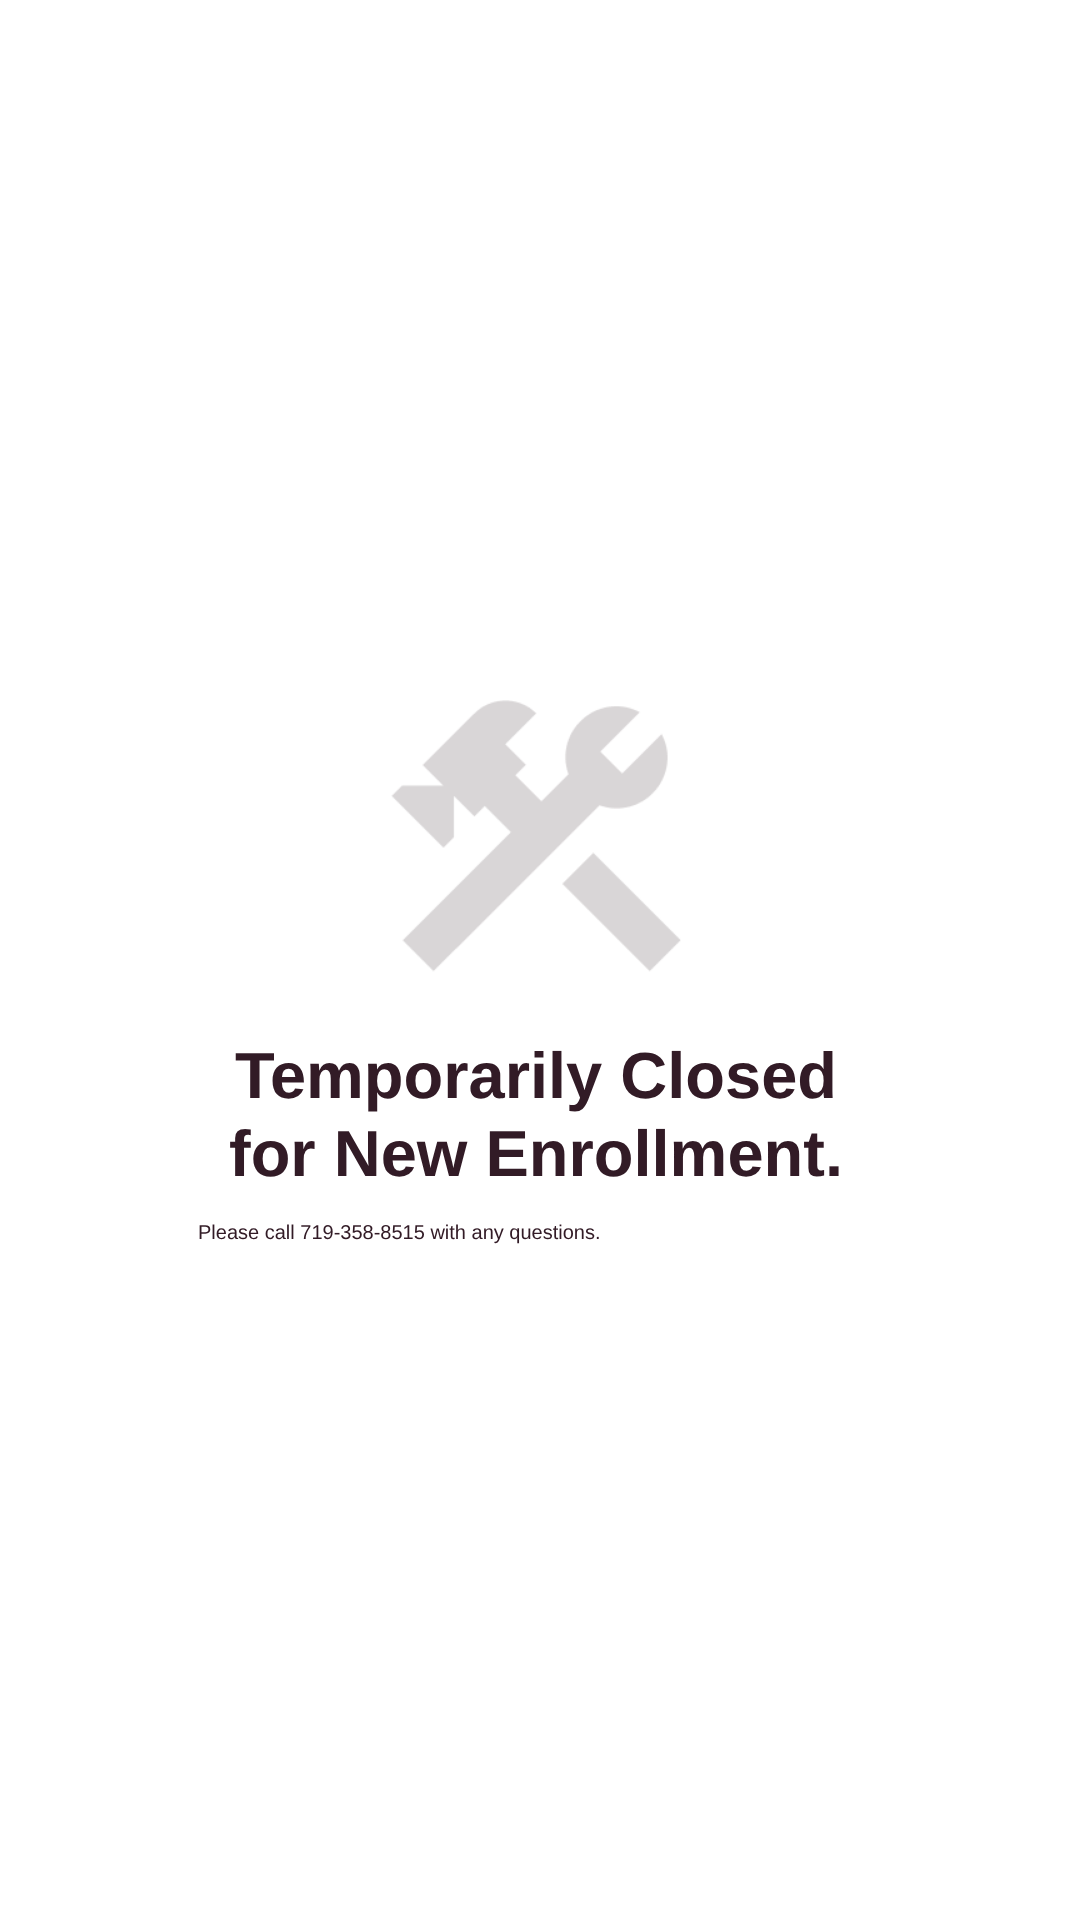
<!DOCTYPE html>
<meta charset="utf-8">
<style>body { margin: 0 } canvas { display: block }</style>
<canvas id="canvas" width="1071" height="1910"></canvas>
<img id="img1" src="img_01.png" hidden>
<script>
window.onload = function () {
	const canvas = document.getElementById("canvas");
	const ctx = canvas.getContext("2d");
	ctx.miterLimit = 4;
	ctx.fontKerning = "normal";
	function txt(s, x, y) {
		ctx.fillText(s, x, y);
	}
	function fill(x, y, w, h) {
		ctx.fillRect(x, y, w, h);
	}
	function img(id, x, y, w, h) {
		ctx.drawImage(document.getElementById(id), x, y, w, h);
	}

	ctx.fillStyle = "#FFFFFF";
	fill(0, 0, 1071, 1910);
	img("img1", 391, 700, 290, 272);
	ctx.font = "bold 65px Liberation Sans";
	ctx.fillStyle = "#321B26";
	txt("Temporarily Closed", 235, 1098);
	txt("for New Enrollment.", 229, 1176);
	ctx.font = "20px Liberation Sans";
	txt("Please call 719-358-8515 with any questions.", 198, 1239);
};
</script>
